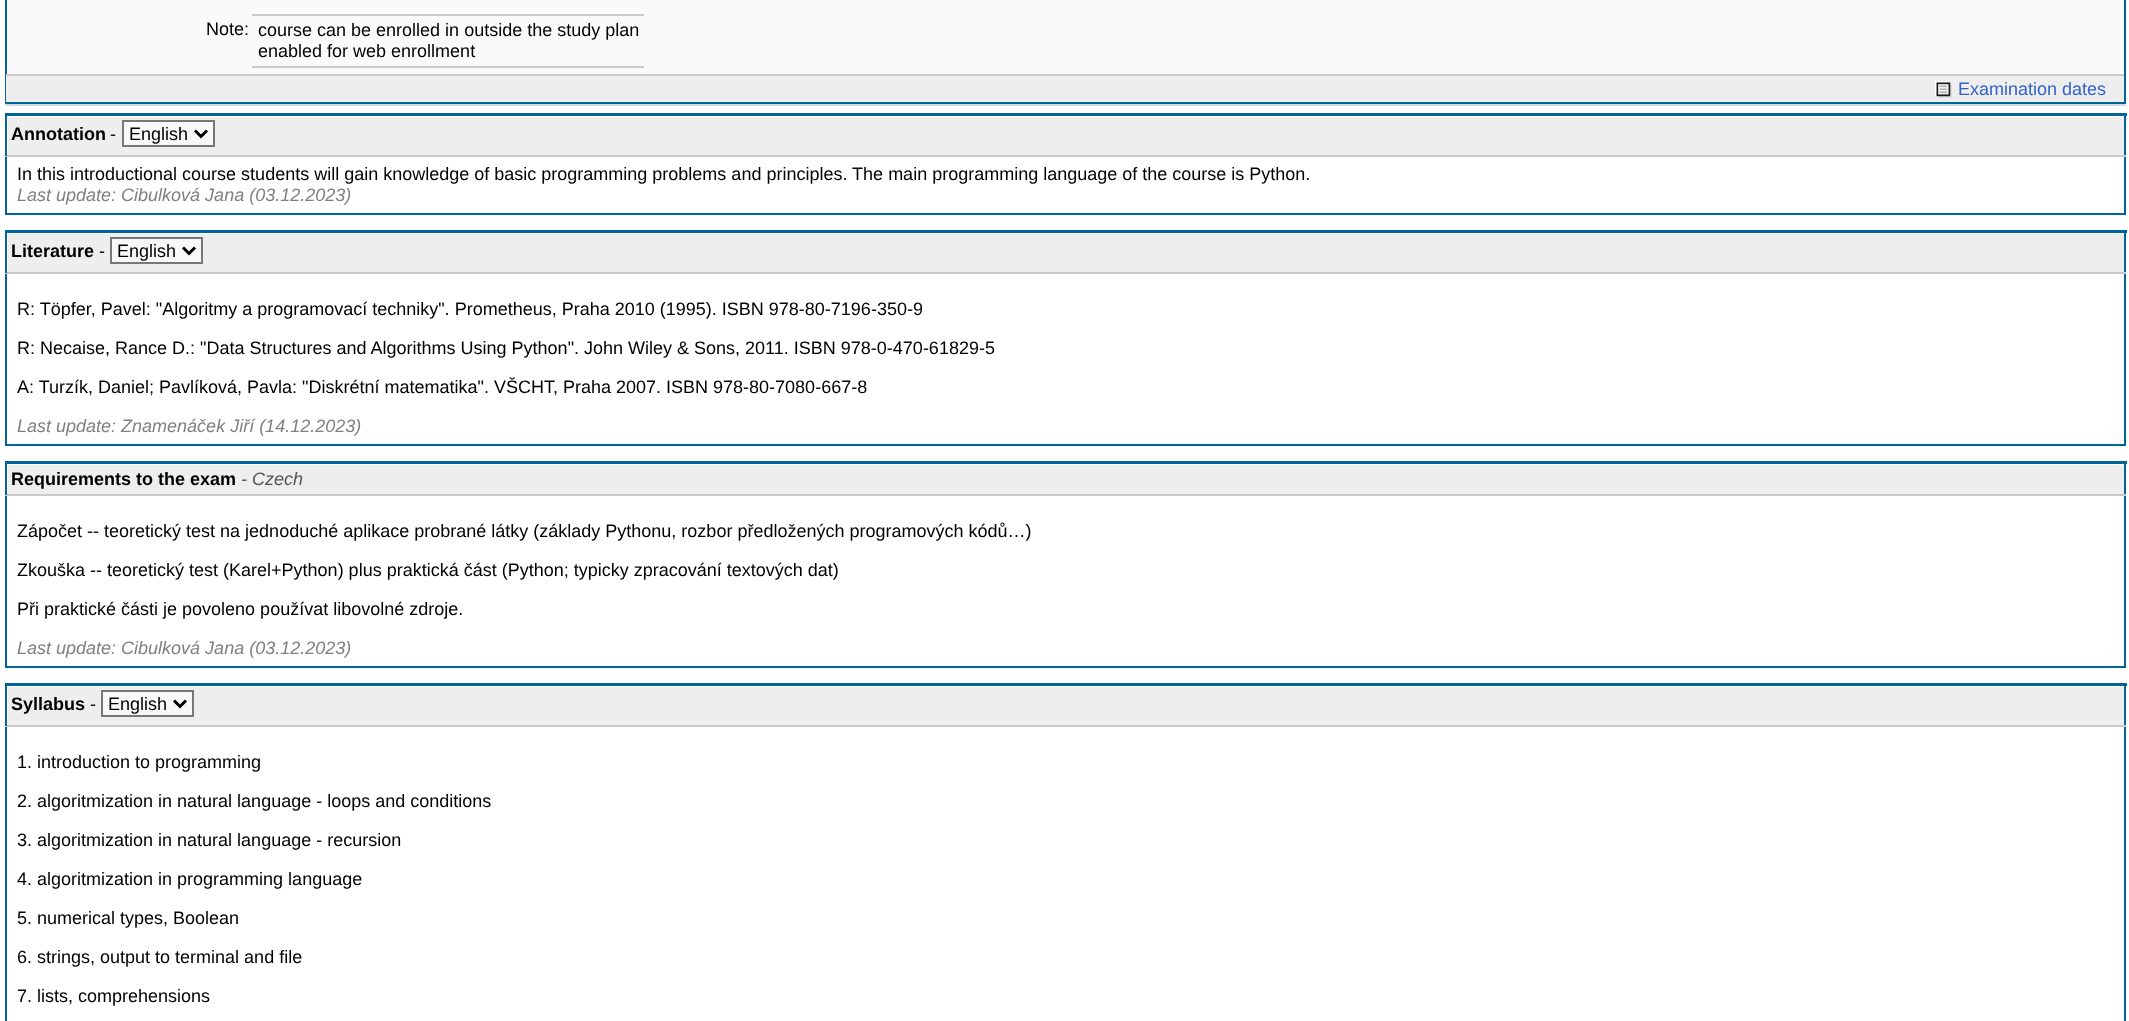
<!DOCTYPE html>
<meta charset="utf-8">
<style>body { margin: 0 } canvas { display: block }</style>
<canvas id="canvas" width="2129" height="1021"></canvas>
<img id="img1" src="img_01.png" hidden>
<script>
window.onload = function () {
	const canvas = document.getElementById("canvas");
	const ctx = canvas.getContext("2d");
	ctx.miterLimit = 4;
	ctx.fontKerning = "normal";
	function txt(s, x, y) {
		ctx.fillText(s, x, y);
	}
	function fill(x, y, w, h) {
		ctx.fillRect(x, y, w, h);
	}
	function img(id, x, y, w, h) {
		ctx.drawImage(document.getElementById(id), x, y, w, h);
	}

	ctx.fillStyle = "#FFFFFF";
	fill(0, 0, 2129, 1021);
	ctx.fillStyle = "#FAFAFA";
	fill(7, 0, 2117, 74);
	ctx.fillStyle = "#006699";
	fill(2124, 0, 2, 104);
	fill(5, 102, 2121, 2);
	fill(5, 0, 2, 104);
	ctx.fillStyle = "#CACACA";
	fill(252, 14, 392, 2);
	fill(252, 66, 392, 2);
	ctx.fillStyle = "#EEEEEE";
	fill(6, 76, 2118, 26);
	ctx.fillStyle = "#CACACA";
	fill(6, 74, 2118, 2);
	img("img1", 1935, 81, 17, 17);
	ctx.fillStyle = "#DADADA";
	fill(5, 104, 2121, 2);
	ctx.fillStyle = "#EEEEEE";
	fill(8, 117, 2116, 38);
	ctx.fillStyle = "#006699";
	fill(2124, 114, 2, 101);
	fill(5, 213, 2121, 2);
	fill(5, 155, 2, 60);
	ctx.fillStyle = "#CACACA";
	fill(5, 155, 2121, 2);
	ctx.fillStyle = "#006699";
	fill(5, 114, 2, 42);
	fill(5, 113, 2122, 3);
	ctx.fillStyle = "#F8F8F8";
	ctx.beginPath();
	ctx.rect(123, 121, 91, 25);
	ctx.fill();
	ctx.strokeStyle = "#777777";
	ctx.lineWidth = 2;
	ctx.stroke();
	ctx.beginPath();
	ctx.moveTo(195, 130.5);
	ctx.lineTo(201, 136.5);
	ctx.lineTo(207, 130.5);
	ctx.strokeStyle = "#000000";
	ctx.lineWidth = 3;
	ctx.stroke();
	ctx.fillStyle = "#EEEEEE";
	fill(8, 234, 2116, 38);
	ctx.fillStyle = "#006699";
	fill(2124, 231, 2, 215);
	fill(5, 444, 2121, 2);
	fill(5, 272, 2, 174);
	ctx.fillStyle = "#CACACA";
	fill(5, 272, 2121, 2);
	ctx.fillStyle = "#006699";
	fill(5, 231, 2, 42);
	fill(5, 230, 2122, 3);
	ctx.fillStyle = "#F8F8F8";
	ctx.beginPath();
	ctx.rect(111, 238, 91, 25);
	ctx.fill();
	ctx.strokeStyle = "#777777";
	ctx.lineWidth = 2;
	ctx.stroke();
	ctx.beginPath();
	ctx.moveTo(183, 247.5);
	ctx.lineTo(189, 253.5);
	ctx.lineTo(195, 247.5);
	ctx.strokeStyle = "#000000";
	ctx.lineWidth = 3;
	ctx.stroke();
	ctx.fillStyle = "#EEEEEE";
	fill(8, 465, 2116, 29);
	ctx.fillStyle = "#006699";
	fill(2124, 462, 2, 206);
	fill(5, 666, 2121, 2);
	fill(5, 494, 2, 174);
	ctx.fillStyle = "#CACACA";
	fill(5, 494, 2121, 2);
	ctx.fillStyle = "#006699";
	fill(5, 462, 2, 33);
	fill(5, 461, 2122, 3);
	ctx.fillStyle = "#EEEEEE";
	fill(8, 687, 2116, 38);
	ctx.fillStyle = "#006699";
	fill(2124, 684, 2, 337);
	fill(5, 725, 2, 296);
	ctx.fillStyle = "#CACACA";
	fill(5, 725, 2121, 2);
	ctx.fillStyle = "#006699";
	fill(5, 684, 2, 42);
	fill(5, 683, 2122, 3);
	ctx.fillStyle = "#F8F8F8";
	ctx.beginPath();
	ctx.rect(102, 691, 91, 25);
	ctx.fill();
	ctx.strokeStyle = "#777777";
	ctx.lineWidth = 2;
	ctx.stroke();
	ctx.beginPath();
	ctx.moveTo(174, 700.5);
	ctx.lineTo(180, 706.5);
	ctx.lineTo(186, 700.5);
	ctx.strokeStyle = "#000000";
	ctx.lineWidth = 3;
	ctx.stroke();
	ctx.font = "18px Liberation Sans";
	ctx.fillStyle = "#000000";
	txt("Note:", 206, 35);
	txt("course can be enrolled in outside the study plan", 258, 36);
	txt("enabled for web enrollment", 258, 57);
	ctx.fillStyle = "#3364CA";
	txt("Examination dates", 1958, 95);
	ctx.font = "bold 18px Liberation Sans";
	ctx.fillStyle = "#000000";
	txt("Annotation", 11, 140);
	ctx.font = "18px Liberation Sans";
	txt("-", 110, 140);
	txt("English", 129, 140);
	txt("In this introductional course students will gain knowledge of basic programming problems and principles. The main programming language of the course is Python.", 17, 180);
	ctx.font = "italic 18px Liberation Sans";
	ctx.fillStyle = "#808080";
	txt("Last update: Cibulková Jana (03.12.2023)", 17, 201);
	ctx.font = "bold 18px Liberation Sans";
	ctx.fillStyle = "#000000";
	txt("Literature", 11, 257);
	ctx.font = "18px Liberation Sans";
	txt("-", 99, 257);
	txt("English", 117, 257);
	txt("R: Töpfer, Pavel: \"Algoritmy a programovací techniky\". Prometheus, Praha 2010 (1995). ISBN 978-80-7196-350-9", 17, 315);
	txt("R: Necaise, Rance D.: \"Data Structures and Algorithms Using Python\". John Wiley & Sons, 2011. ISBN 978-0-470-61829-5", 17, 354);
	txt("A: Turzík, Daniel; Pavlíková, Pavla: \"Diskrétní matematika\". VŠCHT, Praha 2007. ISBN 978-80-7080-667-8", 17, 393);
	ctx.font = "italic 18px Liberation Sans";
	ctx.fillStyle = "#808080";
	txt("Last update: Znamenáček Jiří (14.12.2023)", 17, 432);
	ctx.font = "bold 18px Liberation Sans";
	ctx.fillStyle = "#000000";
	txt("Requirements to the exam", 11, 485);
	ctx.font = "italic 18px Liberation Sans";
	ctx.fillStyle = "#555555";
	txt("- Czech", 241, 485);
	ctx.font = "18px Liberation Sans";
	ctx.fillStyle = "#000000";
	txt("Zápočet -- teoretický test na jednoduché aplikace probrané látky (základy Pythonu, rozbor předložených programových kódů…)", 17, 537);
	txt("Zkouška -- teoretický test (Karel+Python) plus praktická část (Python; typicky zpracování textových dat)", 17, 576);
	txt("Při praktické části je povoleno používat libovolné zdroje.", 17, 615);
	ctx.font = "italic 18px Liberation Sans";
	ctx.fillStyle = "#808080";
	txt("Last update: Cibulková Jana (03.12.2023)", 17, 654);
	ctx.font = "bold 18px Liberation Sans";
	ctx.fillStyle = "#000000";
	txt("Syllabus", 11, 710);
	ctx.font = "18px Liberation Sans";
	txt("-", 90, 710);
	txt("English", 108, 710);
	txt("1. introduction to programming", 17, 768);
	txt("2. algoritmization in natural language - loops and conditions", 17, 807);
	txt("3. algoritmization in natural language - recursion", 17, 846);
	txt("4. algoritmization in programming language", 17, 885);
	txt("5. numerical types, Boolean", 17, 924);
	txt("6. strings, output to terminal and file", 17, 963);
	txt("7. lists, comprehensions", 17, 1002);
};
</script>
